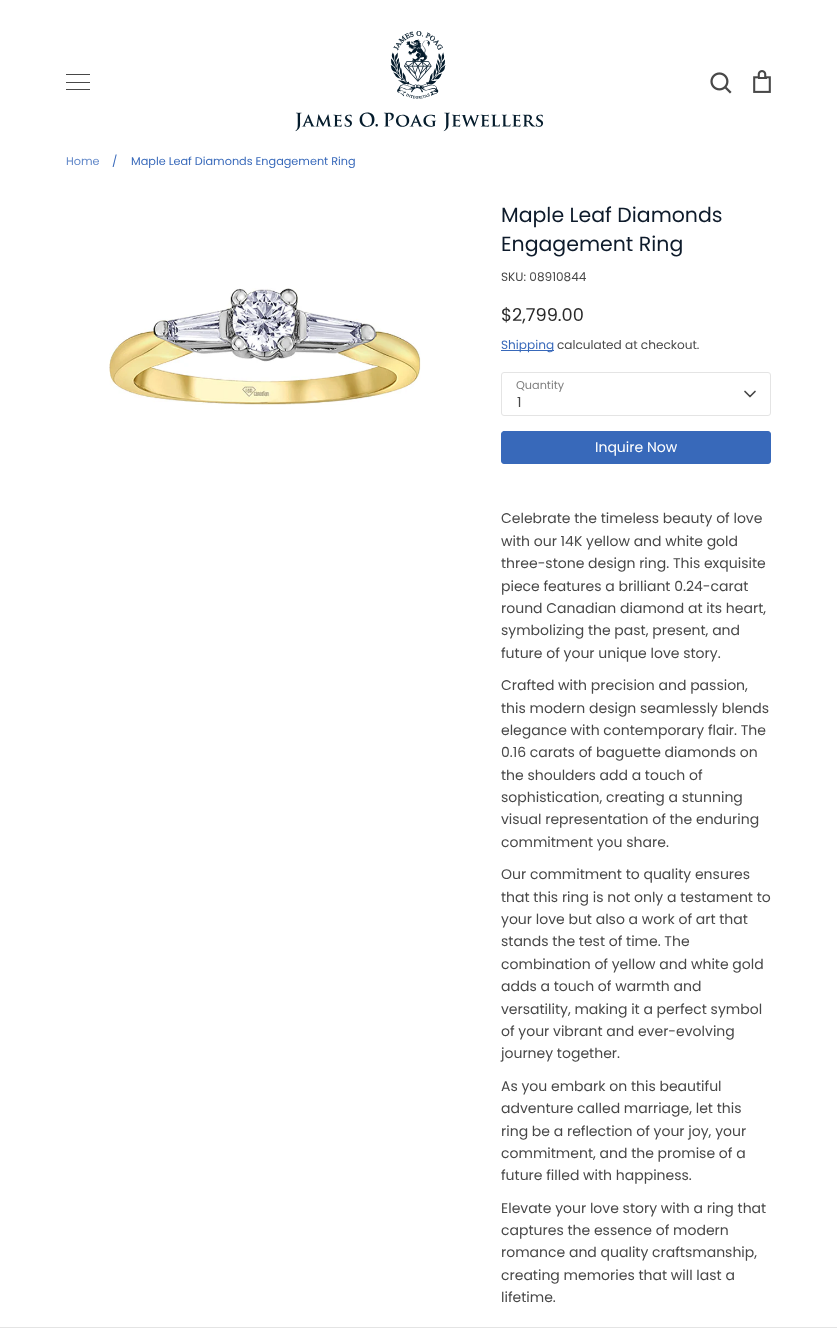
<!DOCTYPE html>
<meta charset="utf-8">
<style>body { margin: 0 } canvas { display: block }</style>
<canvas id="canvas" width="837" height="1328"></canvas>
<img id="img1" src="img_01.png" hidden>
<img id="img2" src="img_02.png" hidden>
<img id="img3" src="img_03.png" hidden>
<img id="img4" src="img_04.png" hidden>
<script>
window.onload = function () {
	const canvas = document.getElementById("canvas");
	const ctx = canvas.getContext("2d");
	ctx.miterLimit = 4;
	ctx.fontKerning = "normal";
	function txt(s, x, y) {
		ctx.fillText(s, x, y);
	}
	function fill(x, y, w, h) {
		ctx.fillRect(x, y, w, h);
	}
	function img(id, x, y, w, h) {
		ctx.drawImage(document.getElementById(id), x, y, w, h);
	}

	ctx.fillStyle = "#FFFFFF";
	fill(0, 0, 837, 1328);
	ctx.fillStyle = "#484848";
	fill(66, 74, 24, 1);
	fill(66, 82, 24, 1);
	fill(66, 89, 24, 1);
	img("img1", 295, 31, 249, 101);
	img("img2", 710, 72, 22, 22);
	img("img3", 753, 70, 18, 23);
	ctx.fillStyle = "#E4E4E4";
	fill(0, 1327, 837, 1);
	img("img4", 109, 288, 312, 117);
	ctx.fillStyle = "#3869BA";
	fill(501, 350, 53, 1);
	ctx.beginPath();
	ctx.roundRect(501.5, 372.5, 269, 43, 2.5);
	ctx.strokeStyle = "#E4E4E4";
	ctx.stroke();
	ctx.beginPath();
	ctx.moveTo(745, 391.5);
	ctx.lineTo(750, 396.5);
	ctx.lineTo(755, 391.5);
	ctx.strokeStyle = "#484848";
	ctx.lineWidth = 1.7;
	ctx.lineCap = "round";
	ctx.lineJoin = "round";
	ctx.stroke();
	ctx.beginPath();
	ctx.roundRect(501.5, 431.5, 269, 32, 2.5);
	ctx.fill();
	ctx.strokeStyle = "#3869BA";
	ctx.lineWidth = 1;
	ctx.lineJoin = "miter";
	ctx.stroke();
	ctx.font = "11.25px Poppins";
	ctx.fillStyle = "#6087C8";
	txt("Home", 66, 165);
	ctx.fillStyle = "#3869BA";
	txt("/", 112, 165);
	txt("Maple Leaf Diamonds Engagement Ring", 131, 165);
	ctx.font = "20.5px Poppins";
	ctx.fillStyle = "#0E1B2B";
	txt("Maple Leaf Diamonds", 501, 222);
	txt("Engagement Ring", 501, 251);
	ctx.font = "12.1px Poppins";
	ctx.fillStyle = "#484848";
	txt("SKU: 08910844", 501, 281);
	ctx.font = "17.75px Poppins";
	ctx.fillStyle = "#292929";
	txt("$2,799.00", 501, 321);
	ctx.font = "12.1px Poppins";
	ctx.fillStyle = "#3869BA";
	txt("Shipping", 501, 349);
	ctx.fillStyle = "#484848";
	txt("calculated at checkout.", 557, 349);
	ctx.font = "11.25px Poppins";
	ctx.fillStyle = "#7F7F7F";
	txt("Quantity", 516, 389);
	ctx.font = "14px Poppins";
	ctx.fillStyle = "#484848";
	txt("1", 517, 407);
	ctx.fillStyle = "#FFFFFF";
	txt("Inquire Now", 595, 452);
	ctx.fillStyle = "#484848";
	txt("Celebrate the timeless beauty of love", 501, 523);
	txt("with our 14K yellow and white gold", 501, 546);
	txt("three-stone design ring. This exquisite", 501, 568);
	txt("piece features a brilliant 0.24-carat", 501, 591);
	txt("round Canadian diamond at its heart,", 501, 613);
	txt("symbolizing the past, present, and", 501, 635);
	txt("future of your unique love story.", 501, 658);
	txt("Crafted with precision and passion,", 501, 690);
	txt("this modern design seamlessly blends", 501, 713);
	txt("elegance with contemporary flair. The", 501, 735);
	txt("0.16 carats of baguette diamonds on", 501, 757);
	txt("the shoulders add a touch of", 501, 780);
	txt("sophistication, creating a stunning", 501, 802);
	txt("visual representation of the enduring", 501, 824);
	txt("commitment you share.", 501, 847);
	txt("Our commitment to quality ensures", 501, 879);
	txt("that this ring is not only a testament to", 501, 902);
	txt("your love but also a work of art that", 501, 924);
	txt("stands the test of time. The", 501, 946);
	txt("combination of yellow and white gold", 501, 969);
	txt("adds a touch of warmth and", 501, 991);
	txt("versatility, making it a perfect symbol", 501, 1014);
	txt("of your vibrant and ever-evolving", 501, 1036);
	txt("journey together.", 501, 1058);
	txt("As you embark on this beautiful", 501, 1091);
	txt("adventure called marriage, let this", 501, 1113);
	txt("ring be a reflection of your joy, your", 501, 1136);
	txt("commitment, and the promise of a", 501, 1158);
	txt("future filled with happiness.", 501, 1180);
	txt("Elevate your love story with a ring that", 501, 1213);
	txt("captures the essence of modern", 501, 1235);
	txt("romance and quality craftsmanship,", 501, 1257);
	txt("creating memories that will last a", 501, 1280);
	txt("lifetime.", 501, 1302);
};
</script>
